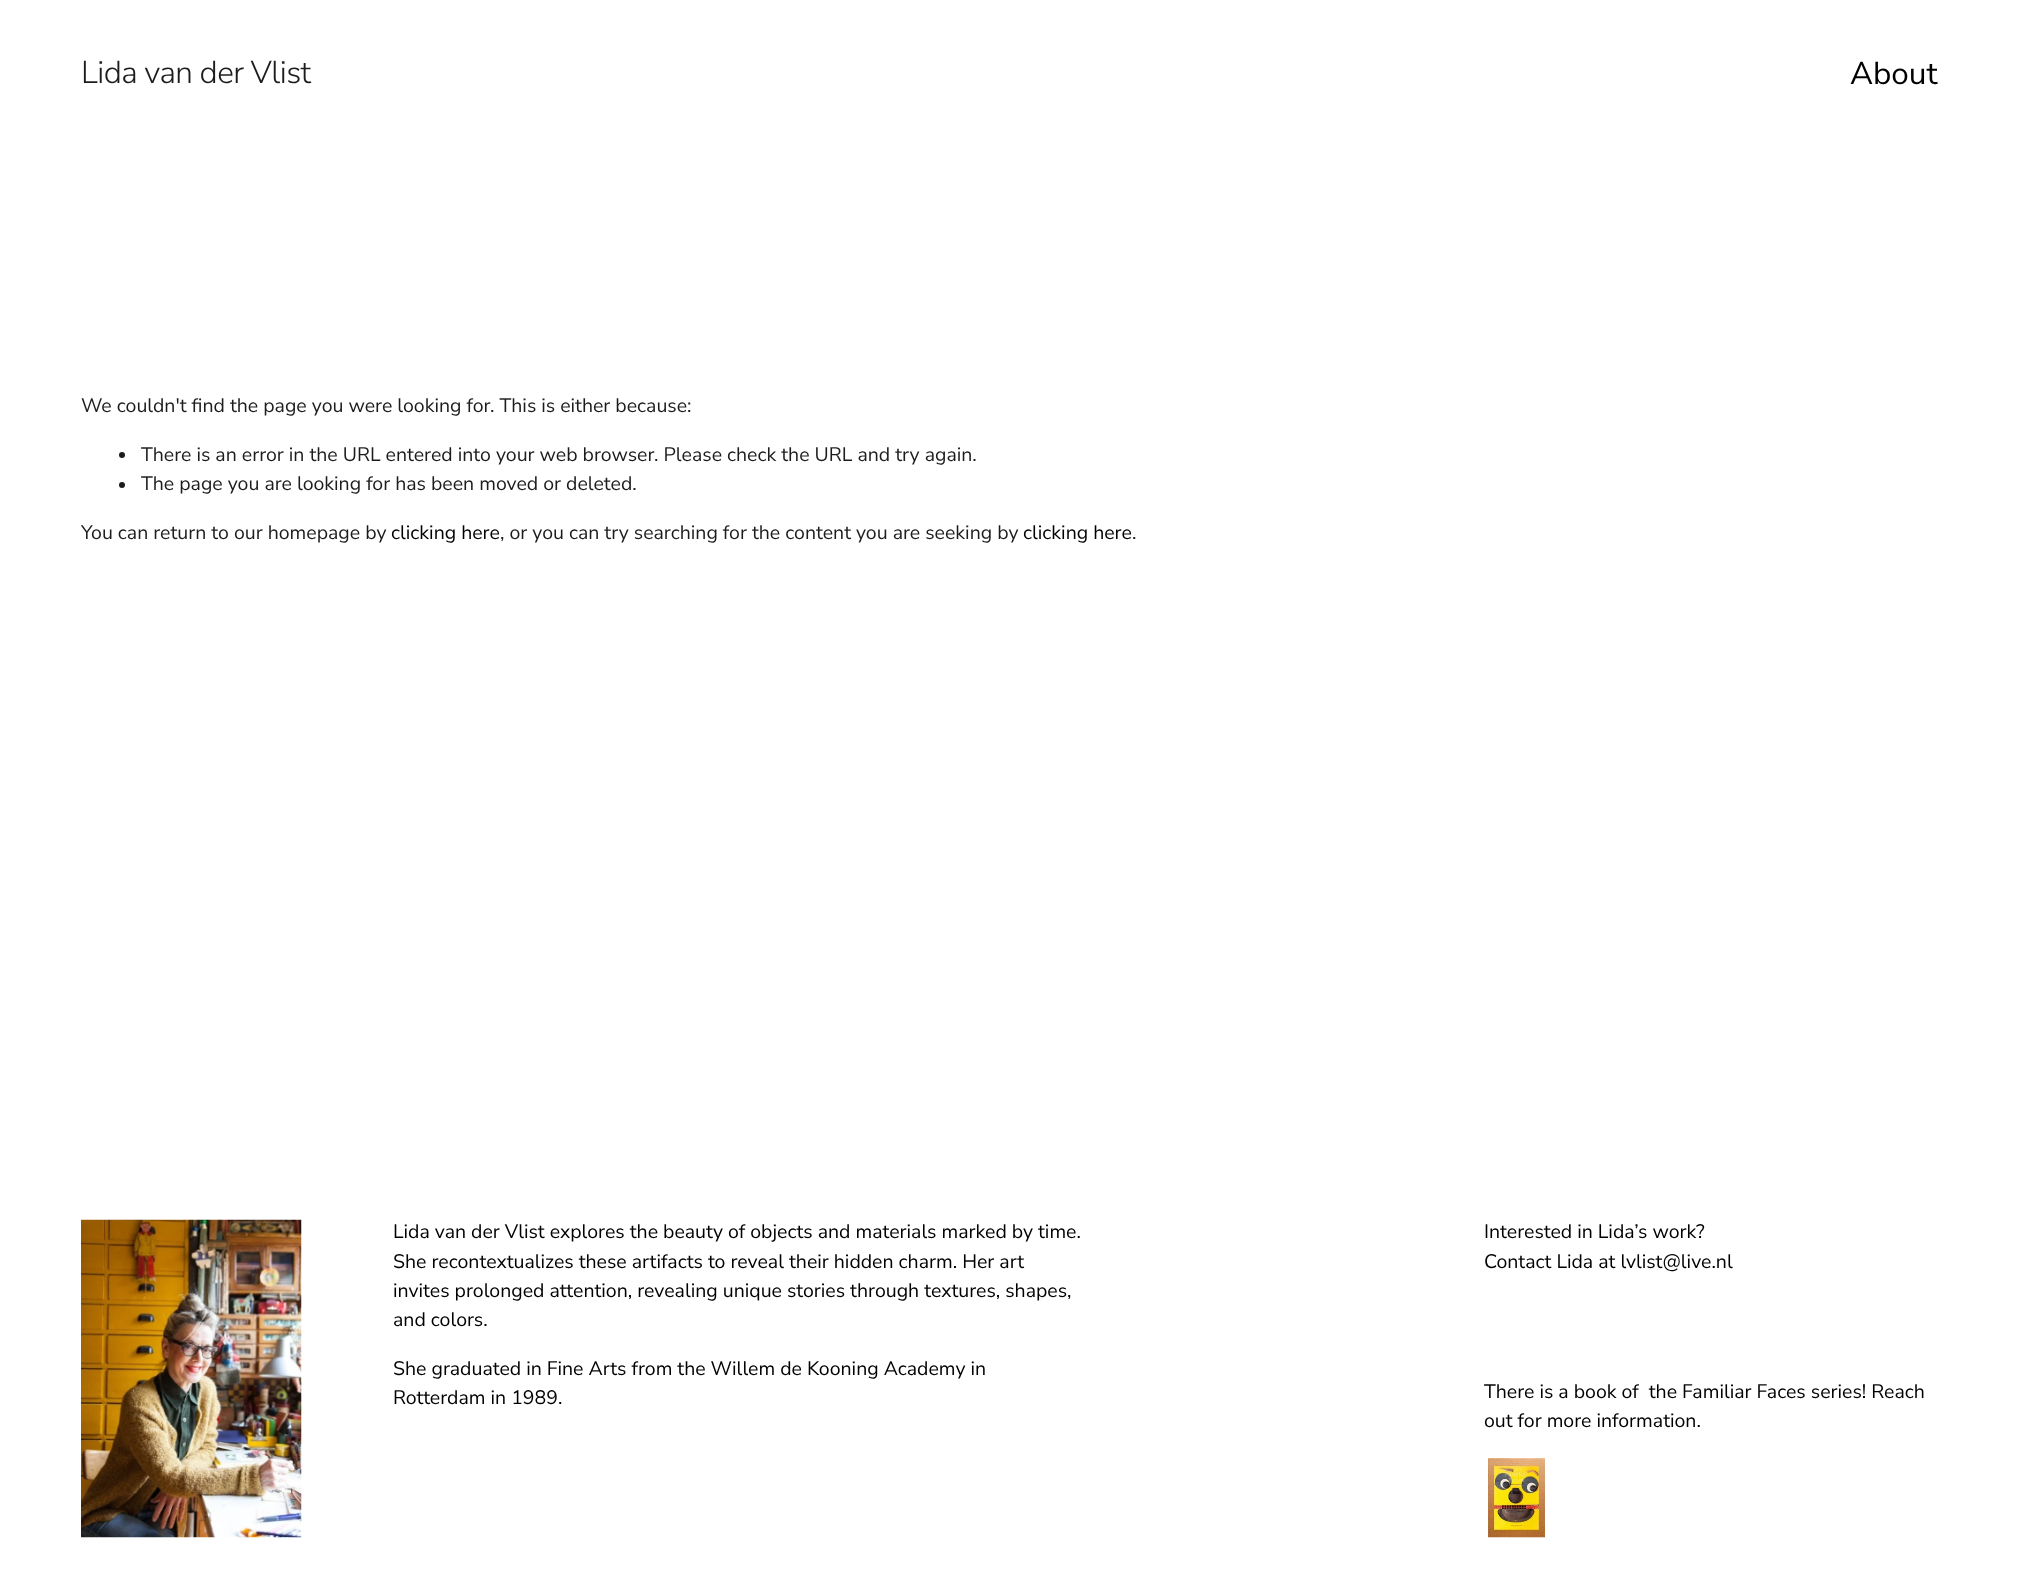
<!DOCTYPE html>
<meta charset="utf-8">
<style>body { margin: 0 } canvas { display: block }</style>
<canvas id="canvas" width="2019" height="1578"></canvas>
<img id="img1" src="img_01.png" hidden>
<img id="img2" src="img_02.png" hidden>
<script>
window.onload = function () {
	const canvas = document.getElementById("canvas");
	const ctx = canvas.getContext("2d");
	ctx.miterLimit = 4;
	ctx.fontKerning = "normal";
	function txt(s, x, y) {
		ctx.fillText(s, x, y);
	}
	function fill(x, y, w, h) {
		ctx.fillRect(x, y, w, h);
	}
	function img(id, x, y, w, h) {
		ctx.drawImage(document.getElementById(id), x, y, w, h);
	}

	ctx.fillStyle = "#FFFFFF";
	fill(0, 0, 2019, 1578);
	ctx.fillStyle = "#1C1C1C";
	ctx.beginPath();
	ctx.arc(122, 455, 3, 0, Math.PI * 2);
	ctx.fill();
	ctx.beginPath();
	ctx.arc(122, 485, 3, 0, Math.PI * 2);
	ctx.fill();
	img("img1", 81, 1219, 221, 319);
	img("img2", 1488, 1458, 57, 80);
	ctx.letterSpacing = "-0.6px";
	ctx.font = "300 31.5px Nunito Sans";
	txt("Lida van der Vlist", 81, 83);
	ctx.letterSpacing = "0px";
	ctx.font = "31.5px Nunito Sans";
	ctx.fillStyle = "#000000";
	txt("About", 1850, 84);
	ctx.font = "19.5px Nunito Sans";
	ctx.fillStyle = "#1C1C1C";
	txt("We couldn't find the page you were looking for. This is either because:", 81, 412);
	txt("There is an error in the URL entered into your web browser. Please check the URL and try again.", 141, 461);
	txt("The page you are looking for has been moved or deleted.", 141, 490);
	txt("You can return to our homepage by", 81, 539);
	ctx.fillStyle = "#000000";
	txt("clicking here", 391, 539);
	ctx.fillStyle = "#1C1C1C";
	txt(", or you can try searching for the content you are seeking by", 500, 539);
	ctx.fillStyle = "#000000";
	txt("clicking here", 1023, 539);
	ctx.fillStyle = "#1C1C1C";
	txt(".", 1132, 539);
	ctx.fillStyle = "#000000";
	txt("Lida van der Vlist explores the beauty of objects and materials marked by time.", 393, 1238);
	txt("She recontextualizes these artifacts to reveal their hidden charm. Her art", 393, 1268);
	txt("invites prolonged attention, revealing unique stories through textures, shapes,", 393, 1297);
	txt("and colors.", 393, 1326);
	txt("She graduated in Fine Arts from the Willem de Kooning Academy in", 393, 1375);
	txt("Rotterdam in 1989.", 393, 1404);
	txt("Interested in Lida’s work?", 1484, 1238);
	txt("Contact Lida at lvlist@live.nl", 1484, 1268);
	txt("There is a book of  the Familiar Faces series! Reach", 1484, 1398);
	txt("out for more information.", 1484, 1427);
};
</script>
